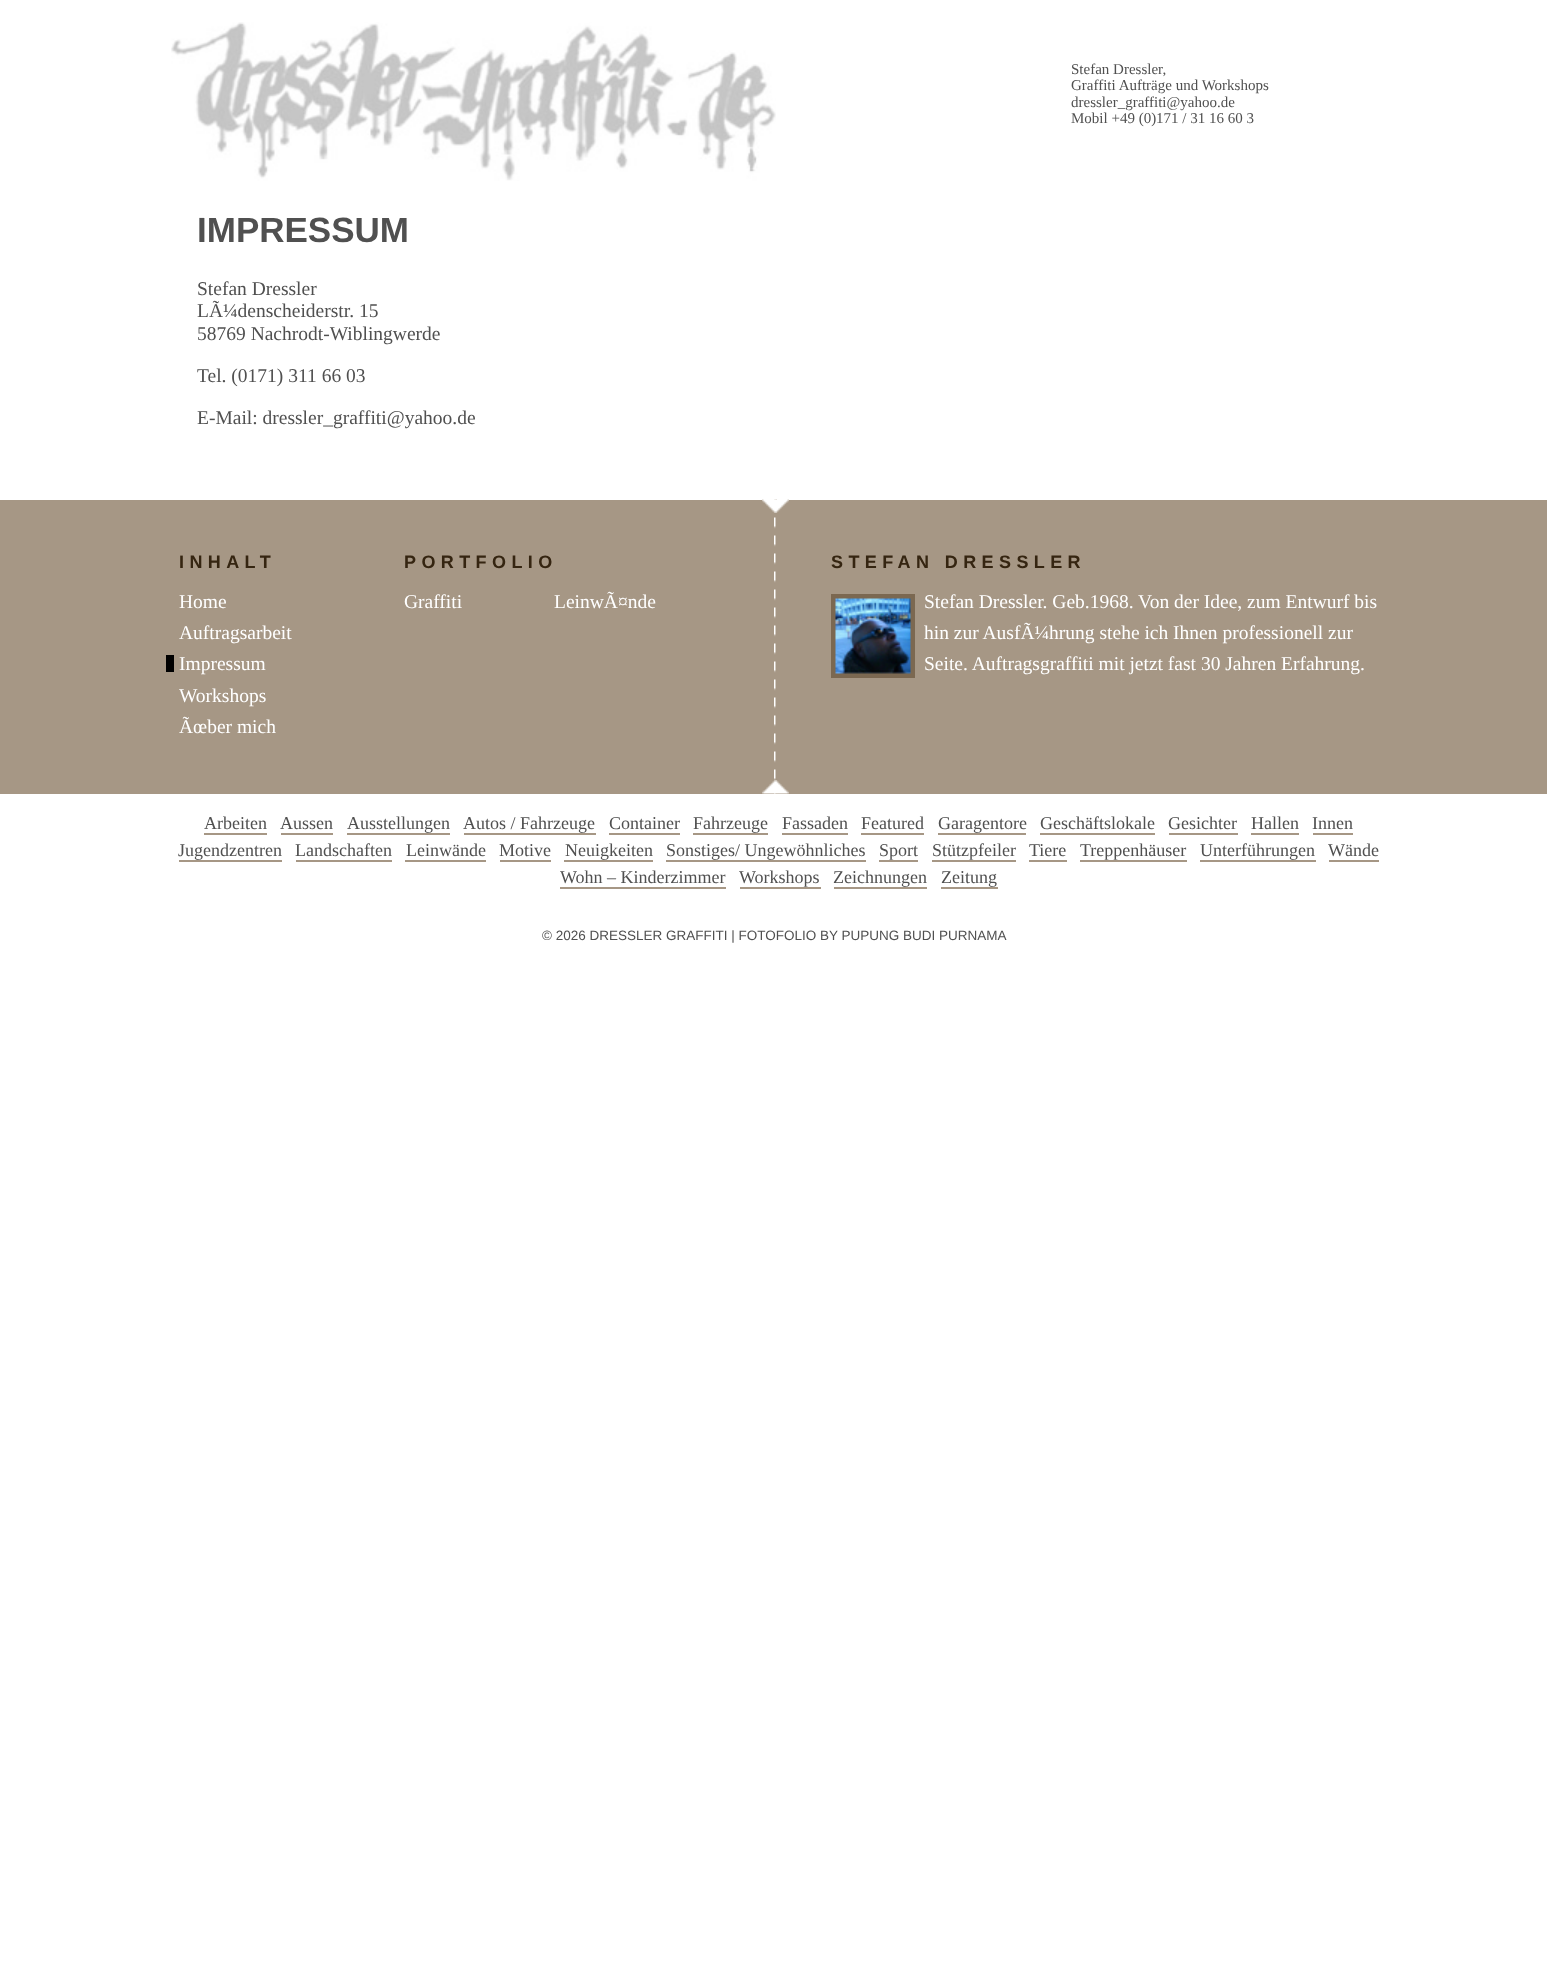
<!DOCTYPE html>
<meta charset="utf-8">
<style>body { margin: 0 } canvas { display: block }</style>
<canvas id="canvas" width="1547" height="1969"></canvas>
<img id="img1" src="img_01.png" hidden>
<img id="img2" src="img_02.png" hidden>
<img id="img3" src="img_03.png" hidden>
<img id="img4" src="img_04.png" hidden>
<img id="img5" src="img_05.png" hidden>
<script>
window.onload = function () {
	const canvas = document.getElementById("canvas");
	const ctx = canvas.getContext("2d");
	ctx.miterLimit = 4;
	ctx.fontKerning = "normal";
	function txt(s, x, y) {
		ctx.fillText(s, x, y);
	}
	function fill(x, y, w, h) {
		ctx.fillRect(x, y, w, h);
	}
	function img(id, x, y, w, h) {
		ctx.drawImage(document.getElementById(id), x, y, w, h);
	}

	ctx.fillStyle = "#FFFFFF";
	fill(0, 0, 1547, 1969);
	img("img1", 171, 22, 605, 159);
	ctx.fillStyle = "#A69785";
	fill(0, 500, 1547, 294);
	img("img2", 774, 499, 3, 295);
	img("img3", 762, 499, 27, 14);
	ctx.fillStyle = "#000000";
	fill(166, 655, 8, 17);
	ctx.fillStyle = "#7B6851";
	fill(831, 594, 84, 84);
	img("img4", 835, 598, 76, 76);
	img("img5", 762, 780, 27, 14);
	ctx.fillStyle = "#A69785";
	fill(204, 833, 63, 2);
	fill(281, 833, 52, 2);
	fill(347, 833, 103, 2);
	fill(464, 833, 132, 2);
	fill(609, 833, 71, 2);
	fill(693, 833, 75, 2);
	fill(782, 833, 66, 2);
	fill(861, 833, 63, 2);
	fill(938, 833, 88, 2);
	fill(1040, 833, 115, 2);
	fill(1169, 833, 69, 2);
	fill(1251, 833, 48, 2);
	fill(1313, 833, 40, 2);
	fill(179, 860, 103, 2);
	fill(296, 860, 96, 2);
	fill(405, 860, 81, 2);
	fill(500, 860, 51, 2);
	fill(564, 860, 89, 2);
	fill(666, 860, 200, 2);
	fill(879, 860, 39, 2);
	fill(932, 860, 84, 2);
	fill(1029, 860, 38, 2);
	fill(1080, 860, 107, 2);
	fill(1200, 860, 116, 2);
	fill(1329, 860, 50, 2);
	fill(560, 887, 166, 2);
	fill(740, 887, 81, 2);
	fill(834, 887, 93, 2);
	fill(941, 887, 57, 2);
	ctx.font = "15px Liberation Serif";
	ctx.fillStyle = "#505050";
	txt("Stefan Dressler,", 1071, 74);
	txt("Graffiti Aufträge und Workshops", 1071, 90);
	txt("dressler_graffiti@yahoo.de", 1071, 107);
	txt("Mobil +49 (0)171 / 31 16 60 3", 1071, 123);
	ctx.font = "bold 35px Liberation Sans";
	txt("IMPRESSUM", 197, 242);
	ctx.font = "19.5px Liberation Serif";
	txt("Stefan Dressler", 197, 295);
	txt("LÃ¼denscheiderstr. 15", 197, 317);
	txt("58769 Nachrodt-Wiblingwerde", 197, 340);
	txt("Tel. (0171) 311 66 03", 197, 382);
	txt("E-Mail: dressler_graffiti@yahoo.de", 197, 424);
	ctx.letterSpacing = "5.4px";
	ctx.font = "bold 18px Liberation Sans";
	ctx.fillStyle = "#352511";
	txt("INHALT", 179, 568);
	ctx.letterSpacing = "0px";
	ctx.font = "19.5px Liberation Serif";
	ctx.fillStyle = "#FFFFFF";
	txt("Home", 179, 608);
	txt("Auftragsarbeit", 179, 639);
	txt("Impressum", 179, 670);
	txt("Workshops", 179, 702);
	txt("Ãœber mich", 179, 733);
	ctx.letterSpacing = "5.4px";
	ctx.font = "bold 18px Liberation Sans";
	ctx.fillStyle = "#352511";
	txt("PORTFOLIO", 404, 568);
	ctx.letterSpacing = "0px";
	ctx.font = "19.5px Liberation Serif";
	ctx.fillStyle = "#FFFFFF";
	txt("Graffiti", 404, 608);
	txt("LeinwÃ¤nde", 554, 608);
	ctx.letterSpacing = "5.4px";
	ctx.font = "bold 18px Liberation Sans";
	ctx.fillStyle = "#352511";
	txt("STEFAN DRESSLER", 831, 568);
	ctx.letterSpacing = "0px";
	ctx.font = "19.5px Liberation Serif";
	ctx.fillStyle = "#FFFFFF";
	txt("Stefan Dressler. Geb.1968. Von der Idee, zum Entwurf bis", 924, 608);
	txt("hin zur AusfÃ¼hrung stehe ich Ihnen professionell zur", 924, 639);
	txt("Seite. Auftragsgraffiti mit jetzt fast 30 Jahren Erfahrung.", 924, 670);
	ctx.font = "18px Liberation Serif";
	ctx.fillStyle = "#505050";
	txt("Arbeiten", 204, 829);
	txt("Aussen", 280, 829);
	txt("Ausstellungen", 347, 829);
	txt("Autos / Fahrzeuge", 463, 829);
	txt("Container", 609, 829);
	txt("Fahrzeuge", 693, 829);
	txt("Fassaden", 782, 829);
	txt("Featured", 861, 829);
	txt("Garagentore", 938, 829);
	txt("Geschäftslokale", 1040, 829);
	txt("Gesichter", 1168, 829);
	txt("Hallen", 1251, 829);
	txt("Innen", 1312, 829);
	txt("Jugendzentren", 178, 856);
	txt("Landschaften", 295, 856);
	txt("Leinwände", 406, 856);
	txt("Motive", 499, 856);
	txt("Neuigkeiten", 565, 856);
	txt("Sonstiges/ Ungewöhnliches", 666, 856);
	txt("Sport", 879, 856);
	txt("Stützpfeiler", 932, 856);
	txt("Tiere", 1029, 856);
	txt("Treppenhäuser", 1080, 856);
	txt("Unterführungen", 1200, 856);
	txt("Wände", 1328, 856);
	txt("Wohn – Kinderzimmer", 560, 883);
	txt("Workshops", 739, 883);
	txt("Zeichnungen", 833, 883);
	txt("Zeitung", 941, 883);
	ctx.font = "13.5px Liberation Sans";
	txt("© 2026 DRESSLER GRAFFITI | FOTOFOLIO BY PUPUNG BUDI PURNAMA", 542, 940);
};
</script>
